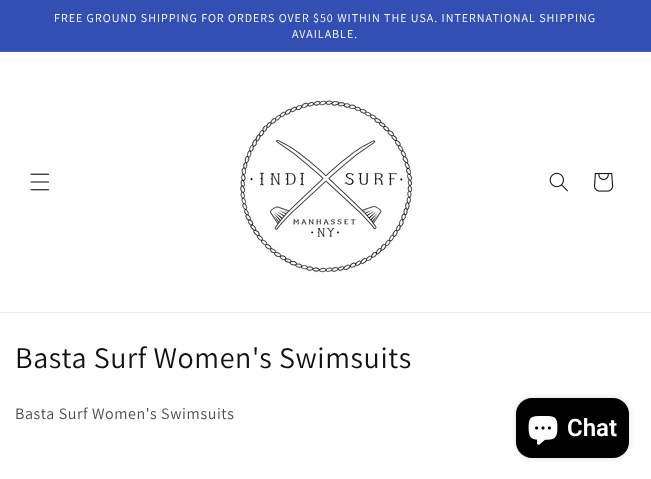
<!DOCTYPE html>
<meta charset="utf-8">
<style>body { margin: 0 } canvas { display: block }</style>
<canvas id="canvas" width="651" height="479"></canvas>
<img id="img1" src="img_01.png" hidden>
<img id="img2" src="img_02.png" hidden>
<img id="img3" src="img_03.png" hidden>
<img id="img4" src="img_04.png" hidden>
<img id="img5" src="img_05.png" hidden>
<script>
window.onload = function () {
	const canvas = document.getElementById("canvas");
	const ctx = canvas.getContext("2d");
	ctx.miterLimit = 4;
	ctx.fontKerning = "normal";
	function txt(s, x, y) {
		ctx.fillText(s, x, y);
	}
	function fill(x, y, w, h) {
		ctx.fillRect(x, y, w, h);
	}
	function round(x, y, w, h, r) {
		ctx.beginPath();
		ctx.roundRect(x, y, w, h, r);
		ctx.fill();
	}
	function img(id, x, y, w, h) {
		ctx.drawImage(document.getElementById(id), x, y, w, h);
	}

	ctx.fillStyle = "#FFFFFF";
	fill(0, 0, 651, 479);
	ctx.fillStyle = "#334FB4";
	fill(0, 0, 651, 51);
	ctx.fillStyle = "#435DBA";
	fill(0, 51, 651, 1);
	ctx.fillStyle = "#ECECEC";
	fill(0, 312, 651, 1);
	img("img1", 30, 173, 20, 18);
	img("img2", 240, 98, 174, 176);
	img("img3", 549, 172, 19, 20);
	img("img4", 594, 173, 20, 19);
	ctx.fillStyle = "rgba(0, 0, 0, 0.15)";
	ctx.filter = "blur(2.5px)";
	ctx.beginPath();
	ctx.roundRect(516, 398, 113, 60, 16);
	ctx.fill();
	ctx.filter = "none";
	ctx.fillStyle = "#000000";
	round(516, 398, 113, 60, 16);
	img("img5", 528, 416, 30, 29);
	ctx.letterSpacing = "1px";
	ctx.font = "12px Assistant";
	ctx.fillStyle = "#FFFFFF";
	txt("FREE GROUND SHIPPING FOR ORDERS OVER $50 WITHIN THE USA. INTERNATIONAL SHIPPING", 54, 22);
	txt("AVAILABLE.", 292, 38);
	ctx.letterSpacing = "0.6px";
	ctx.font = "30px Assistant";
	ctx.fillStyle = "#121212";
	txt("Basta Surf Women's Swimsuits", 15, 368);
	ctx.font = "16px Assistant";
	ctx.fillStyle = "#4D4D4D";
	txt("Basta Surf Women's Swimsuits", 15, 419);
	ctx.letterSpacing = "0px";
	ctx.font = "600 24px Roboto";
	ctx.fillStyle = "#FFFFFF";
	txt("Chat", 567, 436);
};
</script>
